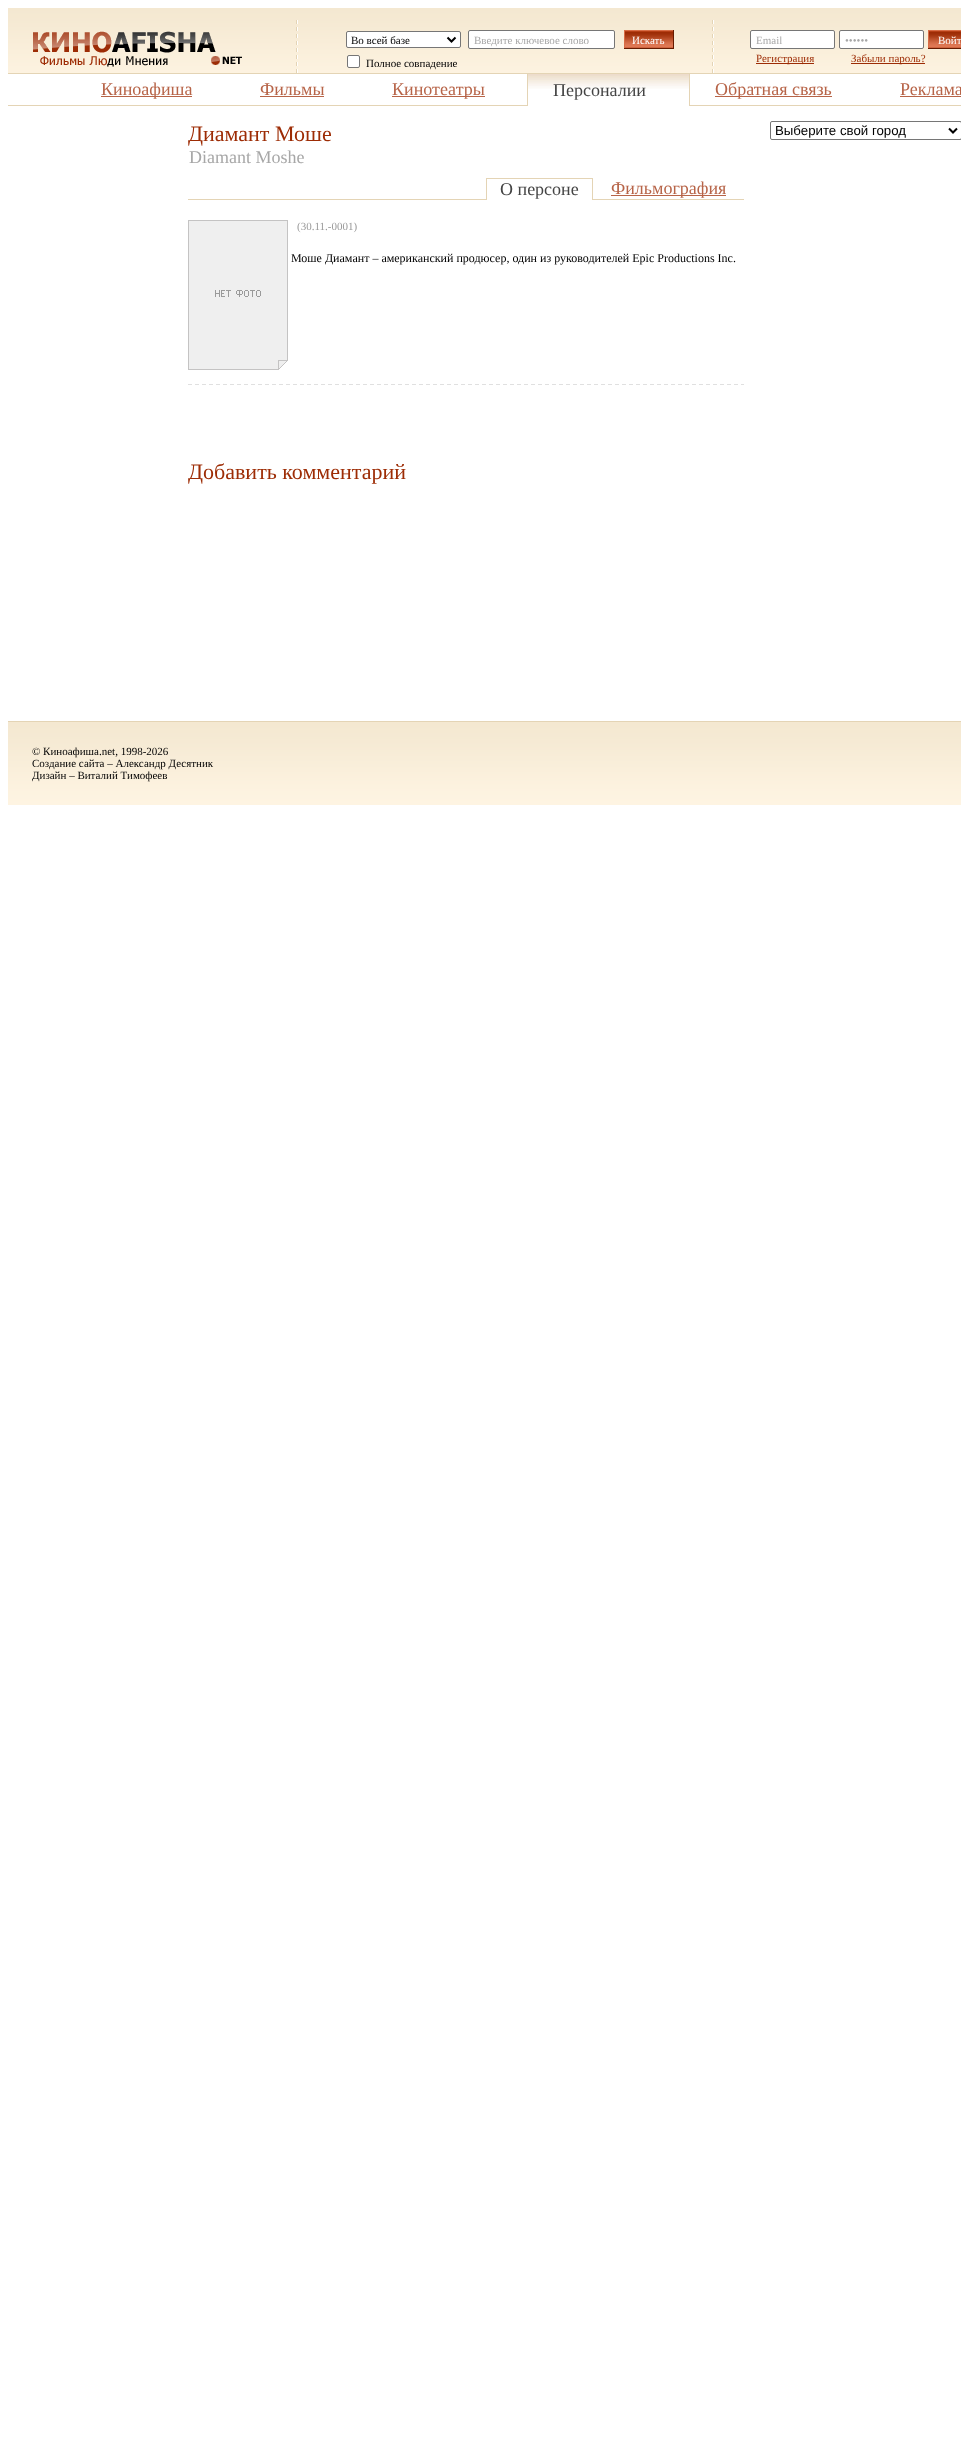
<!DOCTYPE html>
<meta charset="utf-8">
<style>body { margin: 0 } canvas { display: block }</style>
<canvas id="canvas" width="961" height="2458"></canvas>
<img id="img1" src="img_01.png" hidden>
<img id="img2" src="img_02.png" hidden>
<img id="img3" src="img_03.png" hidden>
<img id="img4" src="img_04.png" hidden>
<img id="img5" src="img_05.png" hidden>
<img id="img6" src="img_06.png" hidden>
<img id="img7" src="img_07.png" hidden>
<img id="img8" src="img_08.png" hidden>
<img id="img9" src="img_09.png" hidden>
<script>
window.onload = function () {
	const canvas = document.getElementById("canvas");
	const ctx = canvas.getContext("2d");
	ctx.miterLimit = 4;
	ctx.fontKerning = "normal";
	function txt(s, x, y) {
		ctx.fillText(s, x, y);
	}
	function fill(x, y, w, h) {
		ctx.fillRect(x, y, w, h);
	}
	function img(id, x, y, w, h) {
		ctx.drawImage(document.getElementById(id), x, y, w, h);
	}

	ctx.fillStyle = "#FFFFFF";
	fill(0, 0, 961, 2458);
	img("img1", 8, 8, 953, 65);
	img("img2", 33, 31, 209, 36);
	img("img3", 296, 20, 2, 53);
	ctx.beginPath();
	ctx.roundRect(346.5, 31.5, 114, 16, 1.5);
	ctx.fill();
	ctx.strokeStyle = "#767676";
	ctx.stroke();
	ctx.beginPath();
	ctx.moveTo(447.5, 37.5);
	ctx.lineTo(451.5, 41.5);
	ctx.lineTo(455.5, 37.5);
	ctx.strokeStyle = "#000000";
	ctx.lineWidth = 2;
	ctx.stroke();
	ctx.beginPath();
	ctx.roundRect(468.5, 30.5, 146, 18, 1.5);
	ctx.fill();
	ctx.strokeStyle = "#767676";
	ctx.lineWidth = 1;
	ctx.stroke();
	img("img4", 624, 30, 50, 19);
	ctx.beginPath();
	ctx.roundRect(347.5, 55.5, 12, 12, 1.5);
	ctx.fill();
	ctx.stroke();
	img("img3", 712, 20, 2, 53);
	ctx.beginPath();
	ctx.roundRect(750.5, 30.5, 84, 18, 1.5);
	ctx.fill();
	ctx.stroke();
	ctx.beginPath();
	ctx.roundRect(839.5, 30.5, 84, 18, 1.5);
	ctx.fill();
	ctx.stroke();
	img("img5", 928, 30, 33, 19);
	ctx.fillStyle = "#9D2C05";
	fill(756, 63, 58, 1);
	fill(851, 63, 74, 1);
	ctx.fillStyle = "#E4D4B5";
	fill(8, 73, 953, 1);
	fill(8, 105, 519, 1);
	ctx.fillStyle = "#B76448";
	fill(101, 96, 91, 1);
	fill(260, 96, 64, 1);
	fill(392, 96, 93, 1);
	img("img6", 528, 74, 161, 15);
	ctx.fillStyle = "#E4D4B5";
	fill(689, 73, 1, 33);
	fill(527, 73, 1, 33);
	fill(690, 105, 271, 1);
	ctx.fillStyle = "#B76448";
	fill(715, 96, 117, 1);
	fill(900, 96, 61, 1);
	ctx.fillStyle = "#E4D4B5";
	fill(486, 178, 107, 1);
	fill(592, 178, 1, 22);
	fill(486, 178, 1, 22);
	fill(593, 199, 151, 1);
	ctx.fillStyle = "#B76448";
	fill(611, 195, 115, 1);
	ctx.fillStyle = "#E4D4B5";
	fill(188, 199, 298, 1);
	img("img7", 188, 220, 100, 150);
	img("img8", 188, 384, 556, 1);
	ctx.beginPath();
	ctx.roundRect(770.5, 121.5, 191, 18, 1.5);
	ctx.stroke();
	ctx.beginPath();
	ctx.moveTo(949, 128.5);
	ctx.lineTo(953, 132.5);
	ctx.lineTo(957, 128.5);
	ctx.strokeStyle = "#000000";
	ctx.lineWidth = 2;
	ctx.stroke();
	img("img9", 8, 721, 953, 84);
	ctx.font = "11px Liberation Serif";
	ctx.fillStyle = "#000000";
	txt("Во всей базе", 351, 44);
	ctx.fillStyle = "#A7A7A7";
	txt("Введите ключевое слово", 474, 44);
	ctx.fillStyle = "#FFFFFF";
	txt("Искать", 632, 44);
	ctx.fillStyle = "#000000";
	txt("Полное совпадение", 366, 67);
	ctx.fillStyle = "#A7A7A7";
	txt("Email", 756, 44);
	txt("••••••", 845, 44);
	ctx.fillStyle = "#FFFFFF";
	txt("Войт", 938, 44);
	ctx.fillStyle = "#9D2C05";
	txt("Регистрация", 756, 62);
	txt("Забыли пароль?", 851, 62);
	ctx.font = "18px Liberation Serif";
	ctx.fillStyle = "#B76448";
	txt("Киноафиша", 101, 95);
	txt("Фильмы", 260, 95);
	txt("Кинотеатры", 392, 95);
	ctx.fillStyle = "#444444";
	txt("Персоналии", 553, 96);
	ctx.fillStyle = "#B76448";
	txt("Обратная связь", 715, 95);
	txt("Реклама", 900, 95);
	ctx.font = "22px Liberation Serif";
	ctx.fillStyle = "#9D2C05";
	txt("Диамант Моше", 188, 141);
	ctx.font = "18px Liberation Serif";
	ctx.fillStyle = "#A7A7A7";
	txt("Diamant Moshe", 189, 163);
	ctx.fillStyle = "#444444";
	txt("О персоне", 500, 195);
	ctx.fillStyle = "#B76448";
	txt("Фильмография", 611, 194);
	ctx.font = "11px Liberation Serif";
	ctx.fillStyle = "#9A9A9A";
	txt("(30.11.-0001)", 297, 230);
	ctx.font = "12px Liberation Serif";
	ctx.fillStyle = "#000000";
	txt("Моше Диамант – американский продюсер, один из руководителей Epic Productions Inc.", 291, 262);
	ctx.font = "22px Liberation Serif";
	ctx.fillStyle = "#9D2C05";
	txt("Добавить комментарий", 188, 479);
	ctx.font = "13.25px Liberation Sans";
	ctx.fillStyle = "#000000";
	txt("Выберите свой город", 775, 135);
	ctx.font = "11px Liberation Serif";
	txt("© Киноафиша.net, 1998-2026", 32, 755);
	txt("Создание сайта – Александр Десятник", 32, 767);
	txt("Дизайн – Виталий Тимофеев", 32, 779);
};
</script>
